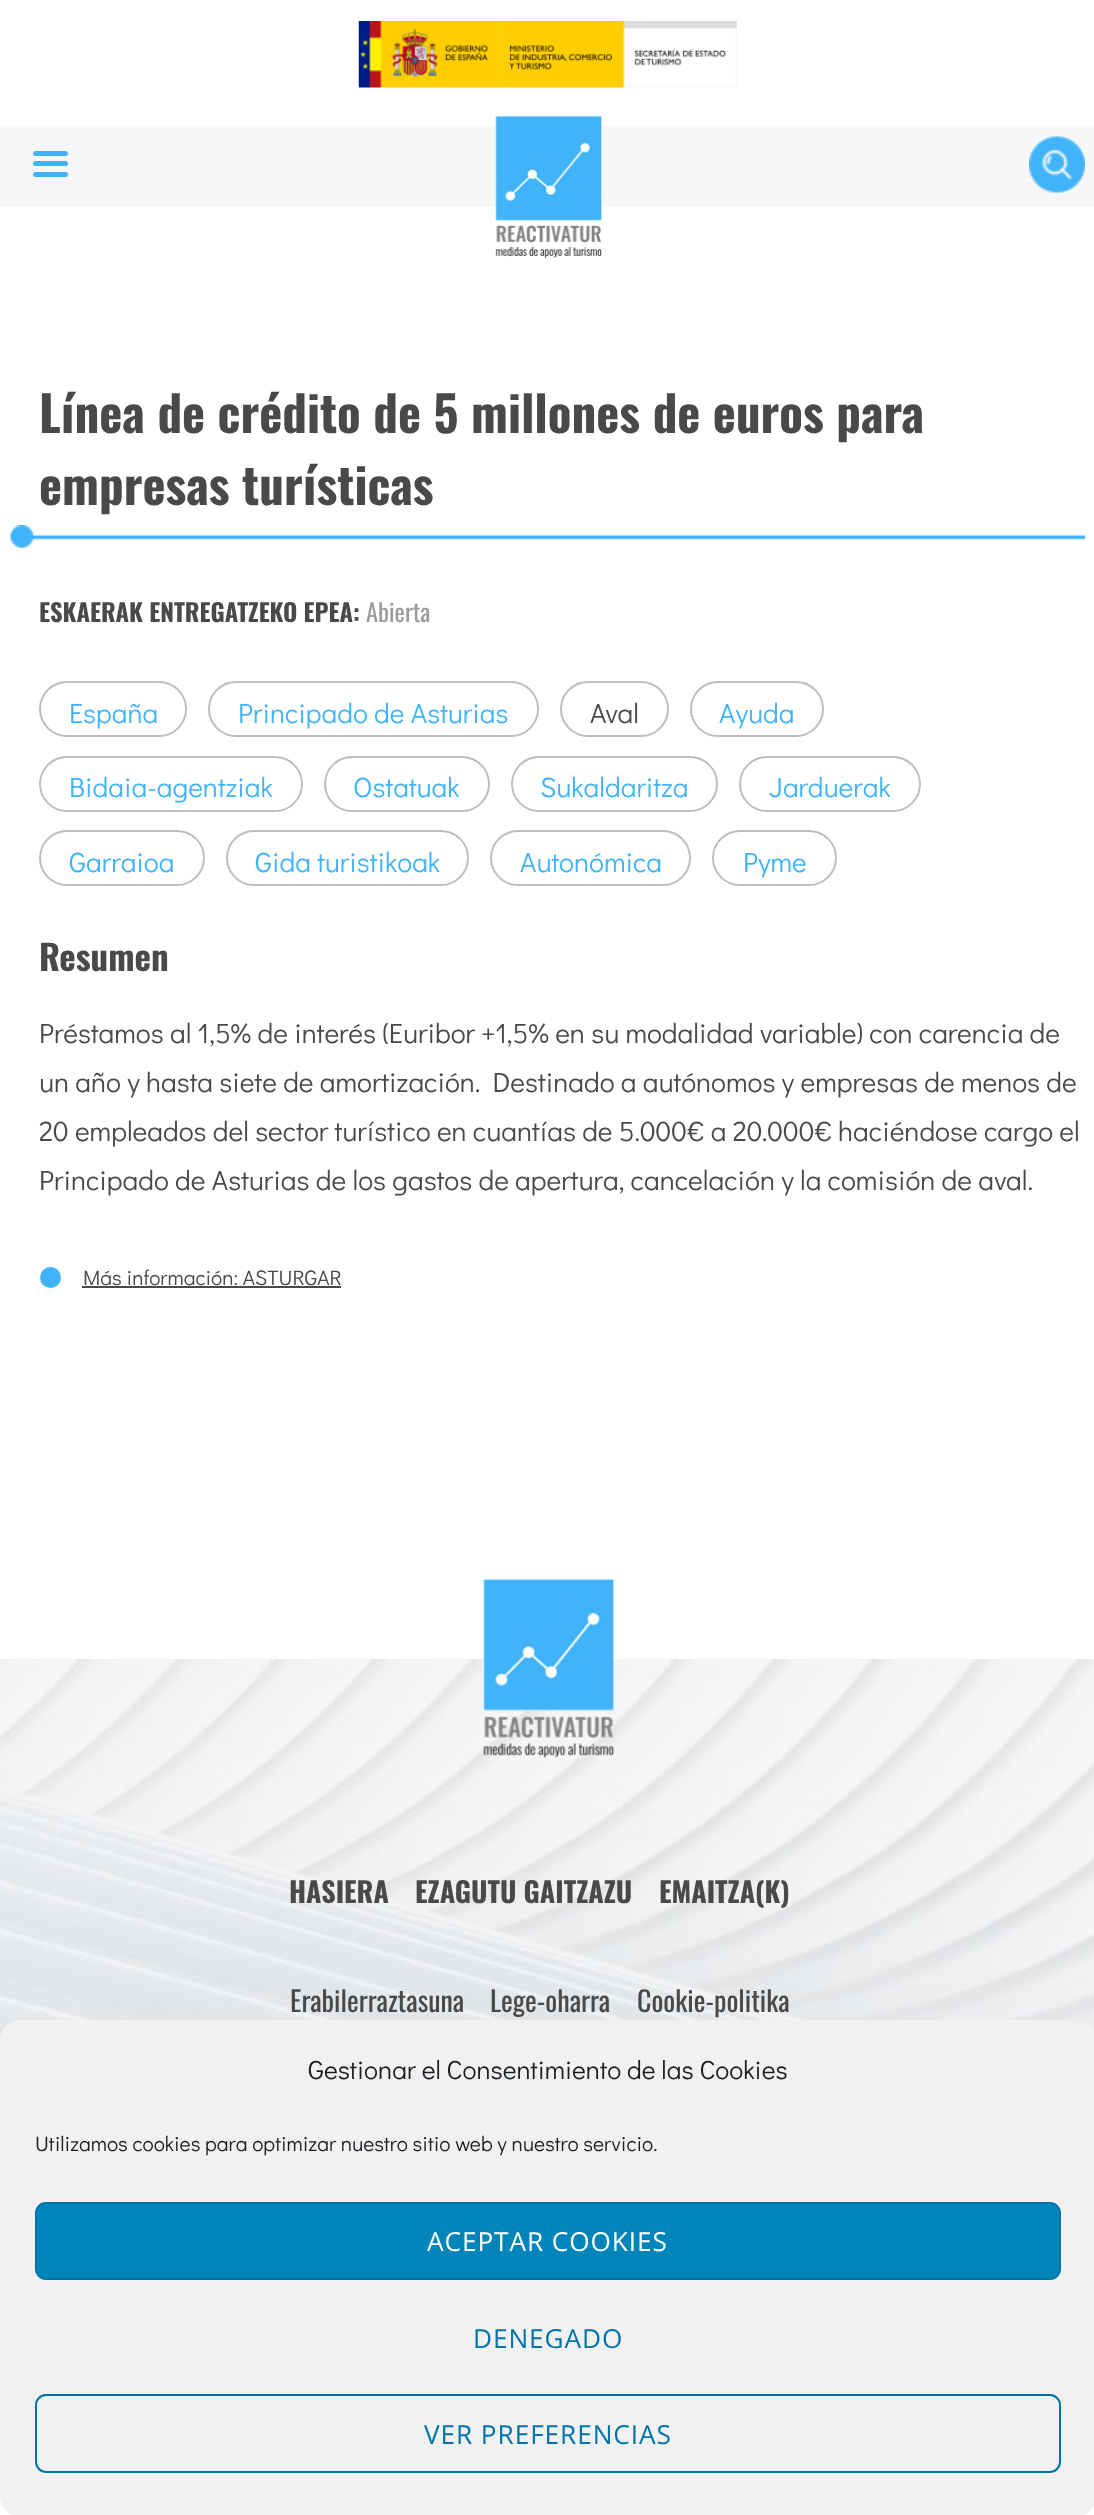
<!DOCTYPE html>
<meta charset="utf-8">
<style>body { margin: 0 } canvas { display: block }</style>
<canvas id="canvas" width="1094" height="2515"></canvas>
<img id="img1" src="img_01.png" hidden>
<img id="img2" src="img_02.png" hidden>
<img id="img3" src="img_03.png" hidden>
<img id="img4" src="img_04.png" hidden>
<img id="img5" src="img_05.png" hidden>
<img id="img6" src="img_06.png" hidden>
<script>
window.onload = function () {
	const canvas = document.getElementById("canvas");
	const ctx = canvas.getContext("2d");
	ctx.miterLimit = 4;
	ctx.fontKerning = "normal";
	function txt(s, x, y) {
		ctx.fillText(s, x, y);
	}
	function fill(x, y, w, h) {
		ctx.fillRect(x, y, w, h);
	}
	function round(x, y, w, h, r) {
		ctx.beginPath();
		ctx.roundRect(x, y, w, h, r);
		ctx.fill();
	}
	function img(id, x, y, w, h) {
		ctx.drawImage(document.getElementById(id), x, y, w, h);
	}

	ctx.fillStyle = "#FFFFFF";
	fill(0, 0, 1094, 2515);
	img("img1", 358, 21, 379, 67);
	ctx.fillStyle = "#F7F7F7";
	fill(0, 126, 1094, 81);
	img("img2", 495, 115, 107, 143);
	ctx.fillStyle = "#41B3F9";
	round(33, 151, 35, 5, 2.5);
	round(33, 161, 35, 5, 2.5);
	round(33, 172, 35, 5, 2.5);
	img("img3", 1029, 136, 56, 57);
	img("img4", 10, 525, 1075, 23);
	ctx.beginPath();
	ctx.roundRect(40, 682, 146, 54, 27);
	ctx.strokeStyle = "#BEBEBE";
	ctx.lineWidth = 2;
	ctx.stroke();
	ctx.beginPath();
	ctx.roundRect(209, 682, 329, 54, 27);
	ctx.stroke();
	ctx.beginPath();
	ctx.roundRect(561, 682, 107, 54, 27);
	ctx.stroke();
	ctx.beginPath();
	ctx.roundRect(691, 682, 132, 54, 27);
	ctx.stroke();
	ctx.beginPath();
	ctx.roundRect(40, 757, 262, 54, 27);
	ctx.stroke();
	ctx.beginPath();
	ctx.roundRect(325, 757, 164, 54, 27);
	ctx.stroke();
	ctx.beginPath();
	ctx.roundRect(512, 757, 205, 54, 27);
	ctx.stroke();
	ctx.beginPath();
	ctx.roundRect(740, 757, 180, 54, 27);
	ctx.stroke();
	ctx.beginPath();
	ctx.roundRect(40, 831, 164, 54, 27);
	ctx.stroke();
	ctx.beginPath();
	ctx.roundRect(227, 831, 241, 54, 27);
	ctx.stroke();
	ctx.beginPath();
	ctx.roundRect(491, 831, 199, 54, 27);
	ctx.stroke();
	ctx.beginPath();
	ctx.roundRect(713, 831, 123, 54, 27);
	ctx.stroke();
	ctx.beginPath();
	ctx.arc(50.5, 1277.5, 10.5, 0, Math.PI * 2);
	ctx.fill();
	ctx.fillStyle = "#494949";
	fill(82, 1286, 259, 2);
	img("img5", 0, 1659, 1094, 382);
	img("img6", 483, 1578, 132, 180);
	ctx.fillStyle = "#F1F1F1";
	round(0, 2020, 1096, 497, 21);
	ctx.fillStyle = "#0085BA";
	ctx.beginPath();
	ctx.roundRect(36, 2203, 1024, 76, 10);
	ctx.fill();
	ctx.strokeStyle = "#0073AA";
	ctx.stroke();
	ctx.beginPath();
	ctx.roundRect(36, 2395, 1024, 77, 10);
	ctx.stroke();
	ctx.font = "bold 49px Oswald";
	ctx.fillStyle = "#494949";
	txt("Línea de crédito de 5 millones de euros para", 39, 433);
	txt("empresas turísticas", 39, 505);
	ctx.font = "bold 24.5px Oswald";
	txt("ESKAERAK ENTREGATZEKO EPEA:", 39, 622);
	ctx.font = "24.5px Oswald";
	ctx.fillStyle = "#9B9B9B";
	txt("Abierta", 366, 622);
	ctx.font = "28px Didact Gothic";
	ctx.fillStyle = "#41B3F9";
	txt("España", 69, 723);
	txt("Principado de Asturias", 238, 723);
	ctx.fillStyle = "#494949";
	txt("Aval", 590, 723);
	ctx.fillStyle = "#41B3F9";
	txt("Ayuda", 719, 723);
	txt("Bidaia-agentziak", 69, 797);
	txt("Ostatuak", 353, 797);
	txt("Sukaldaritza", 540, 797);
	txt("Jarduerak", 769, 797);
	txt("Garraioa", 69, 872);
	txt("Gida turistikoak", 255, 872);
	txt("Autonómica", 520, 872);
	txt("Pyme", 743, 872);
	ctx.font = "bold 35px Oswald";
	ctx.fillStyle = "#494949";
	txt("Resumen", 39, 971);
	ctx.font = "28px Didact Gothic";
	txt("Préstamos al 1,5% de interés (Euribor +1,5% en su modalidad variable) con carencia de", 39, 1043);
	txt("un año y hasta siete de amortización. Destinado a autónomos y empresas de menos de", 39, 1092);
	txt("20 empleados del sector turístico en cuantías de 5.000€ a 20.000€ haciéndose cargo el", 39, 1141);
	txt("Principado de Asturias de los gastos de apertura, cancelación y la comisión de aval.", 39, 1190);
	ctx.font = "21px Didact Gothic";
	txt("Más información: ASTURGAR", 83, 1285);
	ctx.font = "bold 28px Oswald";
	txt("HASIERA", 289, 1903);
	txt("EZAGUTU GAITZAZU", 415, 1903);
	txt("EMAITZA(K)", 659, 1903);
	ctx.font = "28px Oswald";
	txt("Erabilerraztasuna", 290, 2012);
	txt("Lege-oharra", 490, 2012);
	txt("Cookie-politika", 637, 2012);
	ctx.font = "26.25px Didact Gothic";
	ctx.fillStyle = "#191E23";
	txt("Gestionar el Consentimiento de las Cookies", 308, 2079);
	ctx.font = "21px Didact Gothic";
	txt("Utilizamos cookies para optimizar nuestro sitio web y nuestro servicio.", 35, 2151);
	ctx.letterSpacing = "0.9px";
	ctx.font = "26.25px Open Sans";
	ctx.fillStyle = "#FFFFFF";
	txt("ACEPTAR COOKIES", 427, 2251);
	ctx.fillStyle = "#0073AA";
	txt("DENEGADO", 473, 2348);
	txt("VER PREFERENCIAS", 424, 2444);
};
</script>
